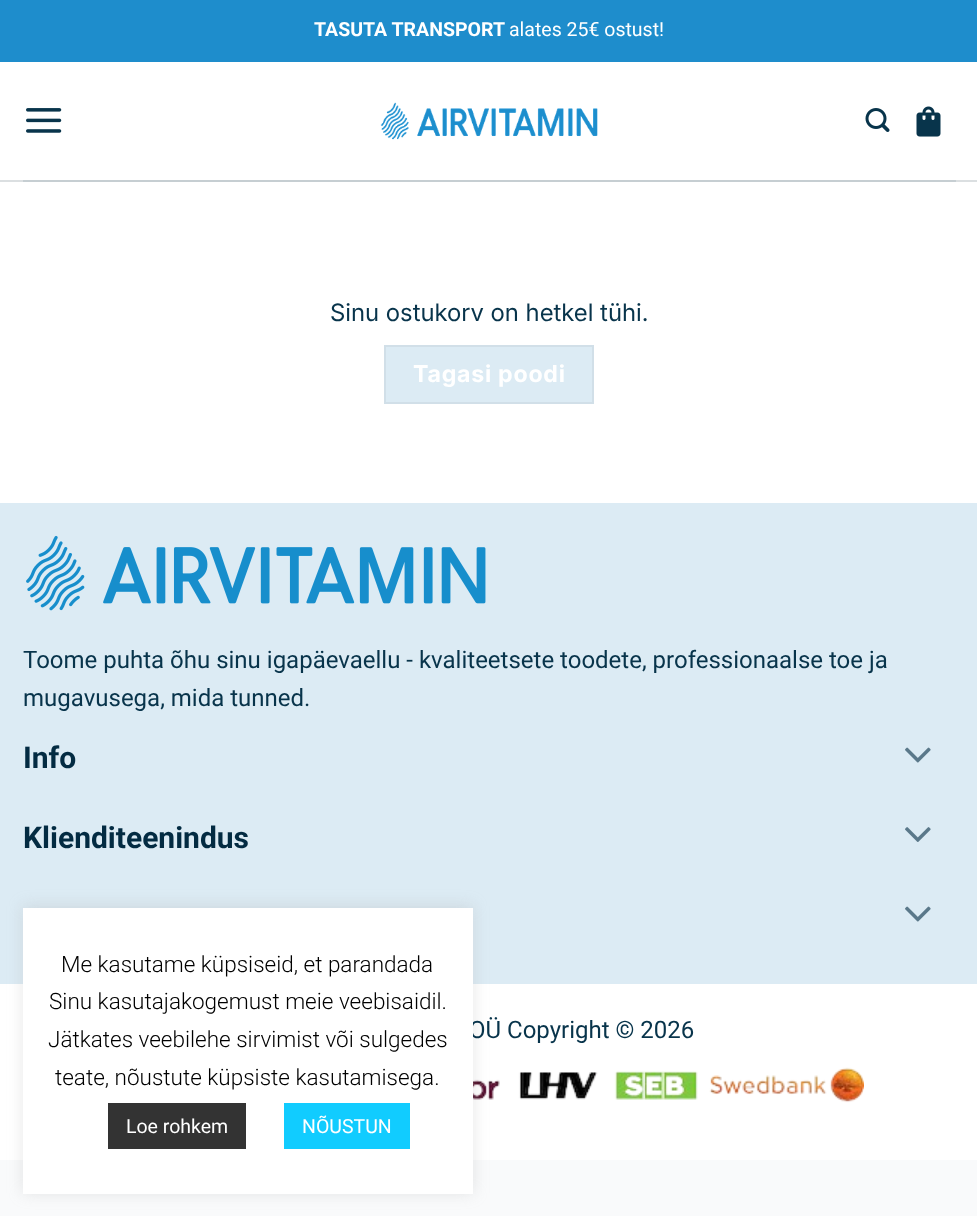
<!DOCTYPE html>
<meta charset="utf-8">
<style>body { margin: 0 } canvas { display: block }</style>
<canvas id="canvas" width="977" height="1216"></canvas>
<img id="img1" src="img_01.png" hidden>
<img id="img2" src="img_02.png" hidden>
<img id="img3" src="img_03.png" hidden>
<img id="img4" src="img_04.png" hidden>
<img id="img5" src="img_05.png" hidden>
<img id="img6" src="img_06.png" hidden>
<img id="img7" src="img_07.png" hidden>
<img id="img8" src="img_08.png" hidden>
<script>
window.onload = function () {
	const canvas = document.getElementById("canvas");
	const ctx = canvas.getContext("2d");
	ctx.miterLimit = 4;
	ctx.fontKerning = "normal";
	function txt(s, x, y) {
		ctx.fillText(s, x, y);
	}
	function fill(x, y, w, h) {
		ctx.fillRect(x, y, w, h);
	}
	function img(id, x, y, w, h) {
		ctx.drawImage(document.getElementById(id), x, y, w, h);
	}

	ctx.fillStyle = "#F9FAFB";
	fill(0, 0, 977, 1216);
	ctx.fillStyle = "#FFFFFF";
	fill(0, 62, 977, 441);
	ctx.fillStyle = "#1E8DCC";
	fill(0, 0, 977, 62);
	ctx.fillStyle = "#DBDFE1";
	fill(0, 180, 977, 2);
	img("img1", 26, 108, 36, 25);
	img("img2", 380, 102, 218, 38);
	img("img3", 865, 108, 25, 24);
	img("img4", 916, 106, 25, 31);
	ctx.fillStyle = "#C6CED2";
	fill(23, 180, 933, 2);
	ctx.fillStyle = "#DCEBF4";
	ctx.beginPath();
	ctx.rect(385, 346, 208, 57);
	ctx.fill();
	ctx.strokeStyle = "#D1DFE8";
	ctx.lineWidth = 2;
	ctx.stroke();
	fill(0, 503, 977, 481);
	img("img5", 26, 535, 460, 76);
	img("img6", 905, 747, 26, 16);
	img("img7", 905, 827, 26, 15);
	img("img6", 905, 906, 26, 16);
	ctx.fillStyle = "#FFFFFF";
	fill(0, 984, 977, 176);
	img("img8", 473, 1067, 391, 36);
	ctx.fillStyle = "rgba(172, 171, 171, 0.3)";
	ctx.filter = "blur(7.5px)";
	ctx.beginPath();
	ctx.rect(23, 906, 450, 287);
	ctx.fill();
	ctx.filter = "none";
	ctx.font = "bold 19.5px Roboto";
	ctx.fillStyle = "#FFFFFF";
	txt("TASUTA TRANSPORT", 314, 36);
	ctx.font = "19.5px Roboto";
	txt("alates 25€ ostust!", 509, 36);
	ctx.font = "24px Inter";
	ctx.fillStyle = "#08344B";
	txt("Sinu ostukorv on hetkel tühi.", 330, 321);
	ctx.letterSpacing = "0.75px";
	ctx.font = "bold 23.25px Inter";
	ctx.fillStyle = "#FFFFFF";
	txt("Tagasi poodi", 413, 382);
	ctx.letterSpacing = "0px";
	ctx.font = "24px Roboto";
	ctx.fillStyle = "#08344B";
	txt("Toome puhta õhu sinu igapäevaellu - kvaliteetsete toodete, professionaalse toe ja", 23, 668);
	txt("mugavusega, mida tunned.", 23, 706);
	ctx.font = "bold 30px Roboto";
	ctx.fillStyle = "#032B42";
	txt("Info", 23, 768);
	txt("Klienditeenindus", 23, 848);
	ctx.font = "24px Roboto";
	ctx.fillStyle = "#08344B";
	txt("OÜ Copyright © 2026", 469, 1038);
	ctx.fillStyle = "#FFFFFF";
	fill(23, 908, 450, 286);
	ctx.font = "300 22.5px Roboto";
	ctx.fillStyle = "#000000";
	txt("Me kasutame küpsiseid, et parandada", 61, 972);
	txt("Sinu kasutajakogemust meie veebisaidil.", 49, 1009);
	txt("Jätkates veebilehe sirvimist või sulgedes", 48, 1047);
	txt("teate, nõustute küpsiste kasutamisega.", 55, 1085);
	ctx.fillStyle = "#333333";
	fill(108, 1103, 138, 46);
	ctx.font = "19.5px Roboto";
	ctx.fillStyle = "#FFFFFF";
	txt("Loe rohkem", 126, 1133);
	ctx.fillStyle = "#11CCFF";
	fill(284, 1103, 126, 46);
	ctx.fillStyle = "#FFFFFF";
	txt("NÕUSTUN", 302, 1133);
};
</script>
